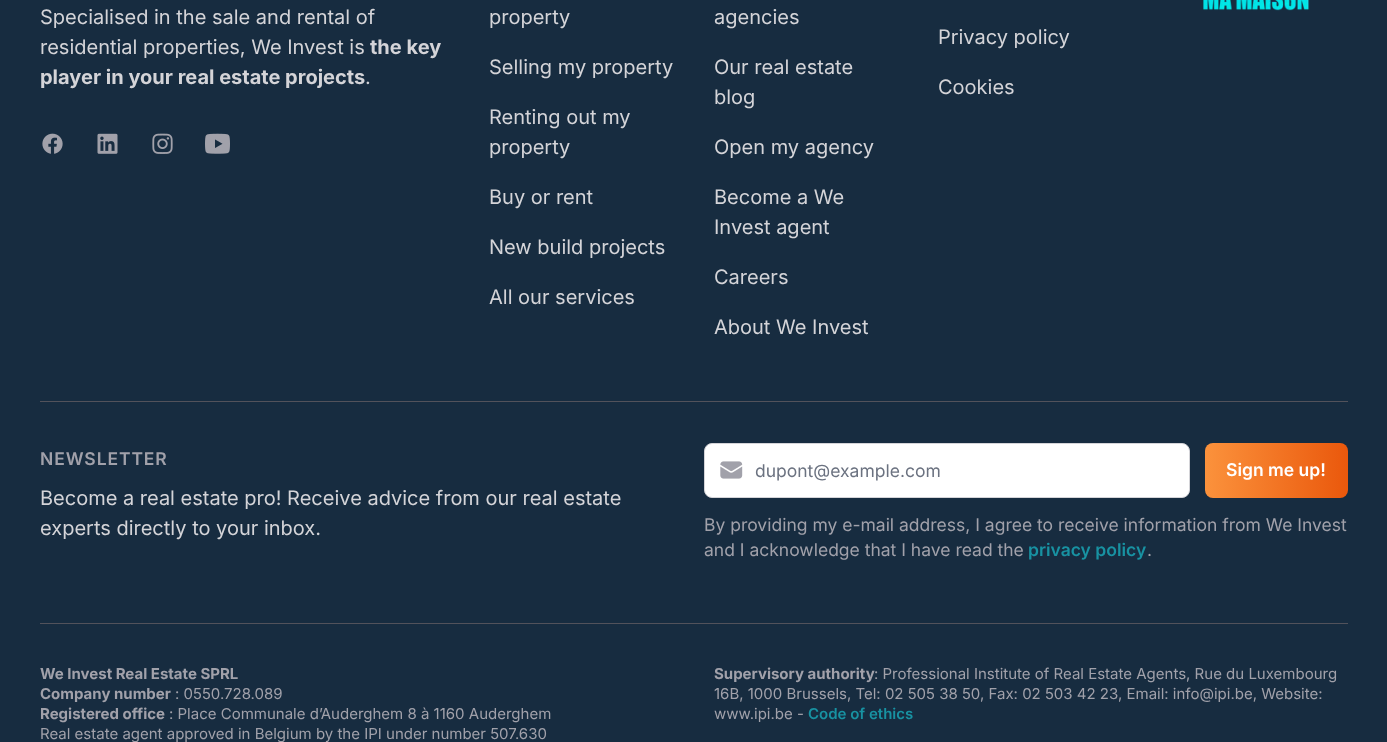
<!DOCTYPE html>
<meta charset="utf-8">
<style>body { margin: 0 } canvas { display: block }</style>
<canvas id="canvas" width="1387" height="742"></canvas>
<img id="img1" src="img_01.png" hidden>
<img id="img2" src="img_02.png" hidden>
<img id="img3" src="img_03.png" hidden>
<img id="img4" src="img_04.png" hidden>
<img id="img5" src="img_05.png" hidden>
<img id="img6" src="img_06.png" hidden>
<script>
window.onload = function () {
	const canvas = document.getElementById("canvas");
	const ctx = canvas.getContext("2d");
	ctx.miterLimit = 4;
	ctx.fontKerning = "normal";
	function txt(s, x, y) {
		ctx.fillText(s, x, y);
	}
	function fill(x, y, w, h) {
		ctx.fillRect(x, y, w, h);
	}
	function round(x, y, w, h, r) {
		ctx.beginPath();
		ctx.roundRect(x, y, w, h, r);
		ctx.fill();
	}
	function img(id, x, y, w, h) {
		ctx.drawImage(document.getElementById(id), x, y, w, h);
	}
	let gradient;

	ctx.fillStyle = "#172C40";
	fill(0, 0, 1387, 742);
	img("img1", 1203, 0, 106, 11);
	img("img2", 42, 133, 21, 21);
	img("img3", 97, 133, 21, 21);
	img("img4", 152, 133, 21, 21);
	img("img5", 205, 133, 25, 21);
	ctx.fillStyle = "#52525B";
	fill(40, 401, 1308, 1);
	ctx.fillStyle = "#FFFFFF";
	ctx.beginPath();
	ctx.roundRect(704.5, 443.5, 485, 54, 7.5);
	ctx.fill();
	ctx.strokeStyle = "#D4D4D8";
	ctx.stroke();
	img("img6", 720, 461, 23, 18);
	gradient = ctx.createLinearGradient(1205, 470, 1348, 470);
	gradient.addColorStop(0, "#FB923C");
	gradient.addColorStop(1, "#EA580C");
	ctx.fillStyle = gradient;
	round(1205, 443, 143, 55, 8);
	ctx.fillStyle = "#52525B";
	fill(40, 623, 1308, 1);
	ctx.font = "20px Inter";
	ctx.fillStyle = "#D4D4D8";
	txt("Specialised in the sale and rental of", 40, 24);
	txt("residential properties, We Invest is", 40, 54);
	ctx.font = "bold 20px Inter";
	txt("the key", 370, 54);
	txt("player in your real estate projects", 40, 84);
	ctx.font = "20px Inter";
	txt(".", 365, 84);
	txt("property", 489, 24);
	txt("Selling my property", 489, 74);
	txt("Renting out my", 489, 124);
	txt("property", 489, 154);
	txt("Buy or rent", 489, 204);
	txt("New build projects", 489, 254);
	txt("All our services", 489, 304);
	txt("agencies", 714, 24);
	txt("Our real estate", 714, 74);
	txt("blog", 714, 104);
	txt("Open my agency", 714, 154);
	txt("Become a We", 714, 204);
	txt("Invest agent", 714, 234);
	txt("Careers", 714, 284);
	txt("About We Invest", 714, 334);
	txt("Privacy policy", 938, 44);
	txt("Cookies", 938, 94);
	ctx.letterSpacing = "0.9px";
	ctx.font = "600 17.5px Inter";
	ctx.fillStyle = "#A1A1AA";
	txt("NEWSLETTER", 40, 465);
	ctx.letterSpacing = "0px";
	ctx.font = "20px Inter";
	ctx.fillStyle = "#D4D4D8";
	txt("Become a real estate pro! Receive advice from our real estate", 40, 505);
	txt("experts directly to your inbox.", 40, 535);
	ctx.font = "17.5px Inter";
	ctx.fillStyle = "#6B7280";
	txt("dupont@example.com", 755, 477);
	ctx.font = "600 17.5px Inter";
	ctx.fillStyle = "#FFFFFF";
	txt("Sign me up!", 1226, 476);
	ctx.font = "17.5px Inter";
	ctx.fillStyle = "#A1A1AA";
	txt("By providing my e-mail address, I agree to receive information from We Invest", 704, 531);
	txt("and I acknowledge that I have read the", 704, 556);
	ctx.font = "600 17.5px Inter";
	ctx.fillStyle = "#1892A2";
	txt("privacy policy", 1028, 556);
	ctx.font = "17.5px Inter";
	ctx.fillStyle = "#A1A1AA";
	txt(".", 1147, 556);
	ctx.font = "bold 15px Inter";
	txt("We Invest Real Estate SPRL", 40, 679);
	txt("Company number", 40, 699);
	ctx.font = "15px Inter";
	txt(": 0550.728.089", 175, 699);
	ctx.font = "bold 15px Inter";
	txt("Registered office", 40, 719);
	ctx.font = "15px Inter";
	txt(": Place Communale d’Auderghem 8 à 1160 Auderghem", 169, 719);
	txt("Real estate agent approved in Belgium by the IPI under number 507.630", 40, 739);
	ctx.font = "bold 15px Inter";
	txt("Supervisory authority", 714, 679);
	ctx.font = "15px Inter";
	txt(": Professional Institute of Real Estate Agents, Rue du Luxembourg", 874, 679);
	txt("16B, 1000 Brussels, Tel: 02 505 38 50, Fax: 02 503 42 23, Email: info@ipi.be, Website:", 714, 699);
	txt("www.ipi.be -", 714, 719);
	ctx.font = "600 15px Inter";
	ctx.fillStyle = "#1892A2";
	txt("Code of ethics", 808, 719);
};
</script>
